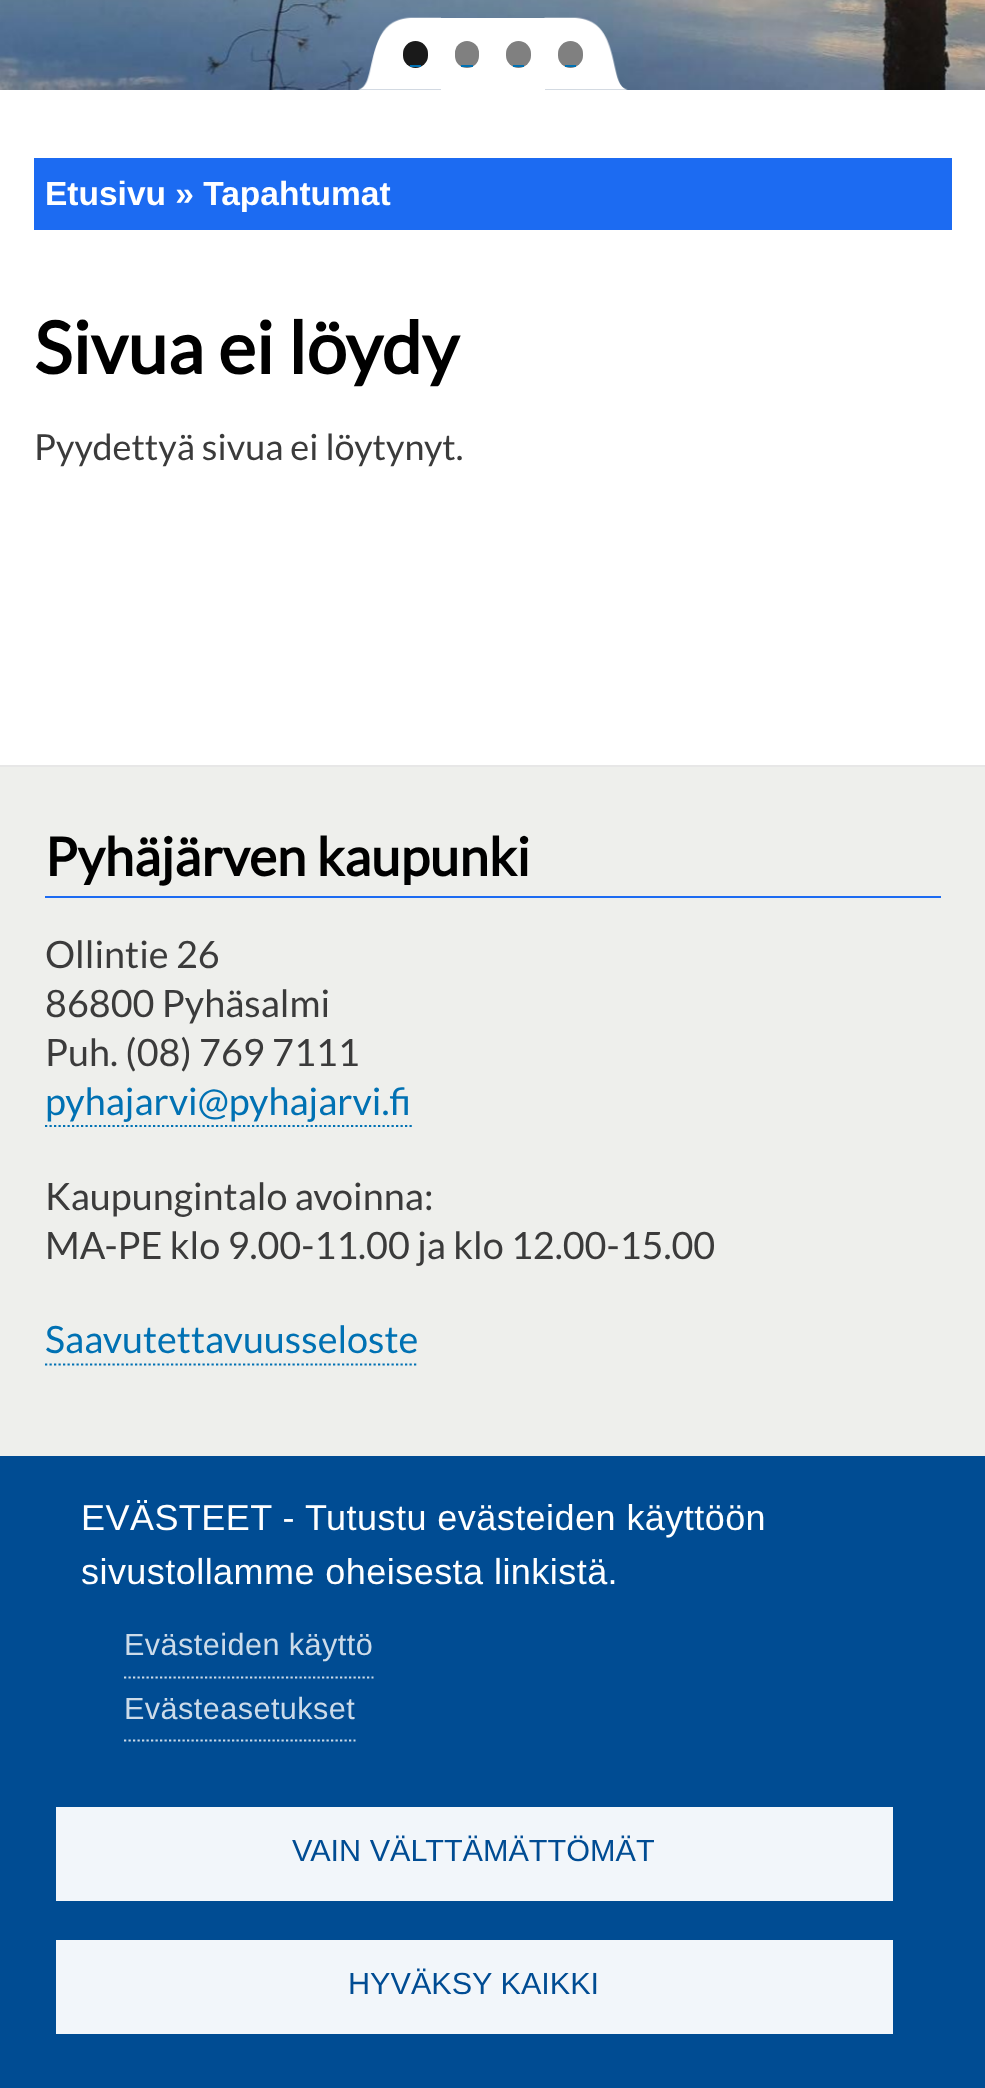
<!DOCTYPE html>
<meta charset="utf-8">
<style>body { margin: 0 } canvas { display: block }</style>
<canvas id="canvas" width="985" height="2088"></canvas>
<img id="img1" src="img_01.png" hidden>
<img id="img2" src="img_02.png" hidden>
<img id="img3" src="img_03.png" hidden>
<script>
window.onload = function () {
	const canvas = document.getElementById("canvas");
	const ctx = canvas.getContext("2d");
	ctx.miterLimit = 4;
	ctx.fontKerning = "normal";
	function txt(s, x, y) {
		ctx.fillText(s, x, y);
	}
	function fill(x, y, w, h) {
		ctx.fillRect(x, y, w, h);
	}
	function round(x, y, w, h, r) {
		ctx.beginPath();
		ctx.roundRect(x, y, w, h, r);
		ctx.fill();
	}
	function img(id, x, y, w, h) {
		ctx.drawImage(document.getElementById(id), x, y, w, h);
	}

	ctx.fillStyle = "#FFFFFF";
	fill(0, 0, 985, 2088);
	img("img1", 0, 0, 985, 90);
	img("img2", 357, 17, 84, 73);
	ctx.fillStyle = "#1A1A1A";
	round(403, 41, 25, 27, 12.5);
	ctx.fillStyle = "#0071B3";
	fill(410, 65, 11, 2);
	ctx.fillStyle = "#FFFFFF";
	fill(441, 18, 104, 72);
	ctx.fillStyle = "#808080";
	round(455, 41, 24, 27, 12);
	ctx.fillStyle = "#0071B3";
	fill(461, 65, 12, 2);
	img("img3", 544, 17, 84, 73);
	ctx.fillStyle = "#808080";
	round(558, 41, 25, 27, 12.5);
	ctx.fillStyle = "#0071B3";
	fill(565, 65, 11, 2);
	ctx.fillStyle = "#808080";
	round(506, 41, 25, 27, 12.5);
	ctx.fillStyle = "#0071B3";
	fill(513, 65, 11, 2);
	ctx.fillStyle = "#1C6BF2";
	fill(34, 158, 918, 72);
	ctx.fillStyle = "#EEEFEC";
	fill(0, 767, 985, 689);
	ctx.fillStyle = "#E7E7E7";
	fill(0, 765, 985, 2);
	ctx.fillStyle = "#1C6BF2";
	fill(45, 896, 896, 2);
	ctx.beginPath();
	ctx.moveTo(45, 1126);
	ctx.lineTo(412, 1126);
	ctx.strokeStyle = "#0071B3";
	ctx.lineWidth = 2.2;
	ctx.setLineDash([2.25, 2.25]);
	ctx.stroke();
	ctx.beginPath();
	ctx.moveTo(45, 1364.5);
	ctx.lineTo(418.5, 1364.5);
	ctx.stroke();
	ctx.fillStyle = "#004C93";
	fill(0, 1456, 985, 632);
	ctx.beginPath();
	ctx.moveTo(124, 1677.5);
	ctx.lineTo(373.5, 1677.5);
	ctx.strokeStyle = "#CCDBE9";
	ctx.stroke();
	ctx.beginPath();
	ctx.moveTo(124, 1740.5);
	ctx.lineTo(355.5, 1740.5);
	ctx.stroke();
	ctx.fillStyle = "#F2F6FA";
	fill(56, 1807, 837, 94);
	fill(56, 1940, 837, 94);
	ctx.font = "bold 33.5px Liberation Sans";
	ctx.fillStyle = "#FFFFFF";
	txt("Etusivu » Tapahtumat", 45, 205);
	ctx.font = "bold 72px Lato";
	ctx.fillStyle = "#000000";
	txt("Sivua ei löydy", 34, 374);
	ctx.font = "36px Lato";
	ctx.fillStyle = "#3B3B3B";
	txt("Pyydettyä sivua ei löytynyt.", 34, 460);
	ctx.font = "bold 53px Lato";
	ctx.fillStyle = "#000000";
	txt("Pyhäjärven kaupunki", 45, 876);
	ctx.font = "37.75px Lato";
	ctx.fillStyle = "#3B3B3B";
	txt("Ollintie 26", 45, 968);
	txt("86800 Pyhäsalmi", 45, 1017);
	txt("Puh. (08) 769 7111", 45, 1066);
	ctx.fillStyle = "#0071B3";
	txt("pyhajarvi@pyhajarvi.fi", 45, 1115);
	ctx.fillStyle = "#3B3B3B";
	txt("Kaupungintalo avoinna:", 45, 1210);
	txt("MA-PE klo 9.00-11.00 ja klo 12.00-15.00", 45, 1259);
	ctx.fillStyle = "#0071B3";
	txt("Saavutettavuusseloste", 45, 1353);
	ctx.letterSpacing = "0.45px";
	ctx.font = "36px Liberation Sans";
	ctx.fillStyle = "#FFFFFF";
	txt("EVÄSTEET -", 81, 1530);
	txt("Tutustu evästeiden käyttöön", 305, 1530);
	txt("sivustollamme oheisesta linkistä.", 81, 1584);
	ctx.font = "30.6px Liberation Sans";
	ctx.fillStyle = "#CCDBE9";
	txt("Evästeiden käyttö", 124, 1655);
	txt("Evästeasetukset", 124, 1719);
	ctx.letterSpacing = "0px";
	ctx.fillStyle = "#004C93";
	txt("VAIN VÄLTTÄMÄTTÖMÄT", 292, 1861);
	txt("HYVÄKSY KAIKKI", 348, 1994);
};
</script>
